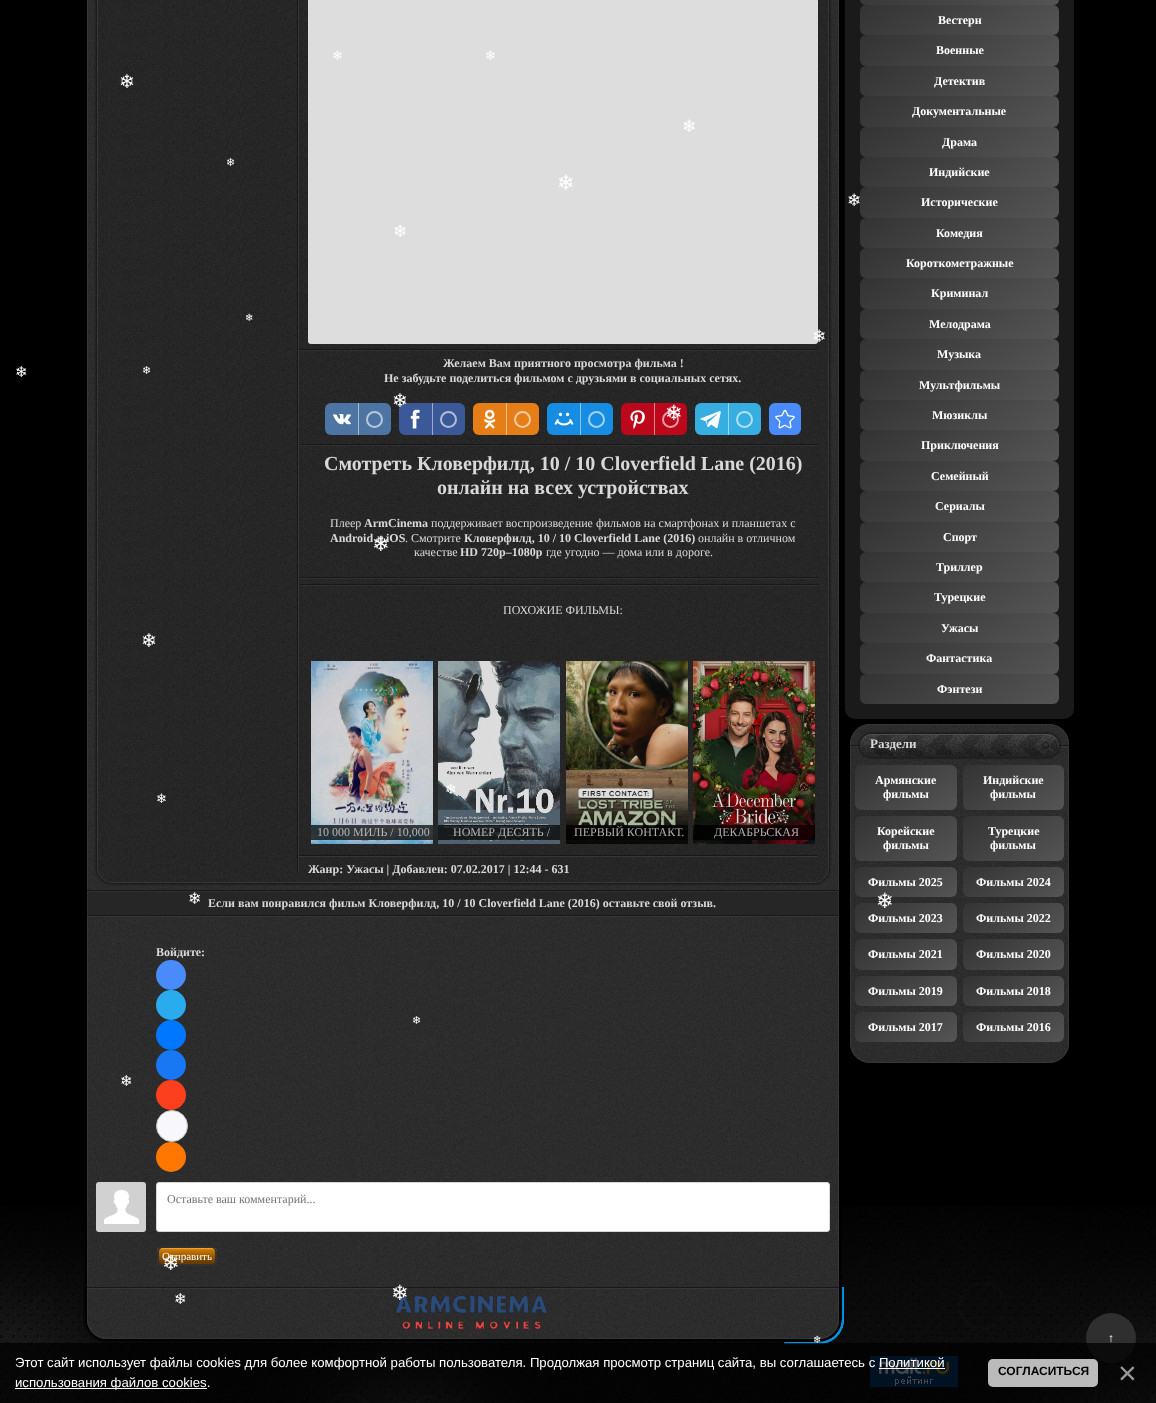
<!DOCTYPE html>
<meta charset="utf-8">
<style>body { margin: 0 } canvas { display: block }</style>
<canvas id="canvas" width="1156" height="1403"></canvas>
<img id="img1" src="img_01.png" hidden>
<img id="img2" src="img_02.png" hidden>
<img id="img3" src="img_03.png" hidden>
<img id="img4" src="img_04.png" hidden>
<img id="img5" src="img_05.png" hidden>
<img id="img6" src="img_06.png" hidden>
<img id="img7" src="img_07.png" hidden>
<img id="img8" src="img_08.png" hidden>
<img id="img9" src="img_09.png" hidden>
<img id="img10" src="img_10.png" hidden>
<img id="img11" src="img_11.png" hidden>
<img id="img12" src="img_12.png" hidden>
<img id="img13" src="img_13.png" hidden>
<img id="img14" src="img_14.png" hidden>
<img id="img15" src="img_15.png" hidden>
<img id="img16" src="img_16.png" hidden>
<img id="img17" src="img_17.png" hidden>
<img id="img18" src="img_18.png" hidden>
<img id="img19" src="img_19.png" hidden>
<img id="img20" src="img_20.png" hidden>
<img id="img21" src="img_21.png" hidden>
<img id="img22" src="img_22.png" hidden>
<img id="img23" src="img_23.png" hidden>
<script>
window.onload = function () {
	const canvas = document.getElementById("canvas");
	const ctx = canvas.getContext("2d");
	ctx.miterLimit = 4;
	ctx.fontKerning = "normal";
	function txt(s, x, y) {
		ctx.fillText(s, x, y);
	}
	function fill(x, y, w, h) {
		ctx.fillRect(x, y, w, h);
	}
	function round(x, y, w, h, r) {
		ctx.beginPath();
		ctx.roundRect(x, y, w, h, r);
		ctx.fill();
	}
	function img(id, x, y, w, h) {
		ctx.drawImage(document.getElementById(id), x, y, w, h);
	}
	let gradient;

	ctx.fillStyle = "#000000";
	fill(0, 0, 1156, 1403);
	img("img1", 0, 1206, 1156, 197);
	img("img2", 83, 1287, 761, 57);
	img("img3", 84, 0, 758, 1287);
	img("img4", 87, 0, 752, 1287);
	img("img5", 94, 0, 738, 852);
	img("img6", 94, 852, 738, 34);
	ctx.fillStyle = "#363636";
	fill(298, 856, 520, 1);
	ctx.fillStyle = "#181818";
	fill(298, 855, 520, 1);
	ctx.fillStyle = "#363636";
	fill(298, 0, 1, 873);
	ctx.fillStyle = "#181818";
	fill(297, 0, 1, 873);
	ctx.fillStyle = "#DEDDDD";
	round(308, -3, 510, 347, 3);
	ctx.fillStyle = "#181818";
	fill(299, 349, 519, 1);
	ctx.fillStyle = "#303030";
	fill(299, 350, 519, 1);
	ctx.fillStyle = "#4D75A3";
	round(325, 403, 66, 32, 6);
	img("img7", 333, 414, 18, 11);
	ctx.fillStyle = "#A6BAD1";
	fill(358, 403, 1, 32);
	ctx.beginPath();
	ctx.arc(374.5, 419.5, 7.5, 0, Math.PI * 2);
	ctx.strokeStyle = "#B8C8DA";
	ctx.lineWidth = 2;
	ctx.stroke();
	ctx.fillStyle = "#3B5998";
	round(399, 403, 66, 32, 6);
	img("img8", 410, 409, 10, 20);
	ctx.fillStyle = "#9DACCC";
	fill(432, 403, 1, 32);
	ctx.beginPath();
	ctx.arc(448.5, 419.5, 7.5, 0, Math.PI * 2);
	ctx.strokeStyle = "#B1BDD6";
	ctx.stroke();
	ctx.fillStyle = "#E67E17";
	round(473, 403, 66, 32, 6);
	img("img9", 484, 409, 12, 20);
	ctx.fillStyle = "#F3BF8B";
	fill(506, 403, 1, 32);
	ctx.beginPath();
	ctx.arc(522.5, 419.5, 7.5, 0, Math.PI * 2);
	ctx.strokeStyle = "#F5CBA2";
	ctx.stroke();
	ctx.fillStyle = "#168DE2";
	round(547, 403, 66, 32, 6);
	img("img10", 554, 412, 20, 14);
	ctx.fillStyle = "#8BC6F1";
	fill(580, 403, 1, 32);
	ctx.beginPath();
	ctx.arc(596.5, 419.5, 7.5, 0, Math.PI * 2);
	ctx.strokeStyle = "#A2D1F3";
	ctx.stroke();
	ctx.fillStyle = "#BD081C";
	round(621, 403, 66, 32, 6);
	img("img11", 630, 410, 15, 19);
	ctx.fillStyle = "#DE848E";
	fill(654, 403, 1, 32);
	ctx.beginPath();
	ctx.arc(670.5, 419.5, 7.5, 0, Math.PI * 2);
	ctx.strokeStyle = "#E59CA4";
	ctx.stroke();
	ctx.fillStyle = "#37AEE2";
	round(695, 403, 66, 32, 6);
	img("img12", 700, 411, 21, 18);
	ctx.fillStyle = "#9BD7F1";
	fill(728, 403, 1, 32);
	ctx.beginPath();
	ctx.arc(744.5, 419.5, 7.5, 0, Math.PI * 2);
	ctx.strokeStyle = "#AFDFF3";
	ctx.stroke();
	ctx.fillStyle = "#498BFA";
	round(769, 403, 32, 32, 6);
	img("img13", 775, 409, 20, 20);
	ctx.fillStyle = "#181818";
	fill(299, 444, 519, 1);
	ctx.fillStyle = "#303030";
	fill(299, 445, 519, 1);
	ctx.fillStyle = "#181818";
	fill(299, 577, 519, 1);
	ctx.fillStyle = "#303030";
	fill(299, 578, 519, 1);
	ctx.fillStyle = "#181818";
	fill(299, 584, 519, 1);
	ctx.fillStyle = "#303030";
	fill(299, 585, 519, 1);
	img("img14", 311, 661, 122, 183);
	ctx.fillStyle = "rgba(0, 0, 0, 0.72)";
	fill(311, 825, 122, 15);
	img("img15", 438, 661, 122, 183);
	fill(438, 825, 122, 15);
	img("img16", 566, 661, 122, 183);
	fill(566, 825, 122, 15);
	img("img17", 693, 661, 122, 183);
	fill(693, 825, 122, 15);
	ctx.fillStyle = "#262626";
	fill(88, 892, 750, 23);
	ctx.fillStyle = "#181818";
	fill(87, 890, 752, 1);
	ctx.fillStyle = "#363636";
	fill(87, 916, 752, 1);
	ctx.fillStyle = "#303030";
	fill(87, 891, 752, 1);
	fill(838, 891, 1, 25);
	ctx.fillStyle = "#181818";
	fill(87, 915, 752, 1);
	ctx.fillStyle = "#303030";
	fill(87, 891, 1, 25);
	ctx.fillStyle = "#498BFA";
	ctx.beginPath();
	ctx.arc(171, 975, 15, 0, Math.PI * 2);
	ctx.fill();
	ctx.fillStyle = "#2AABEE";
	ctx.beginPath();
	ctx.arc(171, 1005, 15, 0, Math.PI * 2);
	ctx.fill();
	ctx.fillStyle = "#0077FF";
	ctx.beginPath();
	ctx.arc(171, 1035, 15, 0, Math.PI * 2);
	ctx.fill();
	ctx.fillStyle = "#1877F2";
	ctx.beginPath();
	ctx.arc(171, 1065, 15, 0, Math.PI * 2);
	ctx.fill();
	ctx.fillStyle = "#FC3F1D";
	ctx.beginPath();
	ctx.arc(171, 1095, 15, 0, Math.PI * 2);
	ctx.fill();
	ctx.fillStyle = "#F8F8FC";
	ctx.beginPath();
	ctx.arc(172, 1126, 15.5, 0, Math.PI * 2);
	ctx.fill();
	ctx.strokeStyle = "#C4C4C4";
	ctx.lineWidth = 1;
	ctx.stroke();
	ctx.fillStyle = "#FF7700";
	ctx.beginPath();
	ctx.arc(171, 1157, 15, 0, Math.PI * 2);
	ctx.fill();
	img("img18", 96, 1182, 50, 50);
	ctx.fillStyle = "#FFFFFF";
	ctx.beginPath();
	ctx.roundRect(156.5, 1182.5, 673, 49, 2.5);
	ctx.fill();
	ctx.strokeStyle = "#D6D6D6";
	ctx.stroke();
	img("img19", 157, 1248, 60, 18);
	ctx.beginPath();
	ctx.roundRect(158, 1247, 58, 18, 5);
	ctx.strokeStyle = "#323232";
	ctx.lineWidth = 2;
	ctx.stroke();
	ctx.fillStyle = "#1A1A1A";
	round(845, -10, 229, 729, 10);
	gradient = ctx.createLinearGradient(920, -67, 999, 47);
	gradient.addColorStop(0, "#333333");
	gradient.addColorStop(1, "#555555");
	ctx.fillStyle = gradient;
	round(860, -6, 199, 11, 6);
	gradient = ctx.createLinearGradient(920, -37, 999, 77);
	gradient.addColorStop(0, "#333333");
	gradient.addColorStop(1, "#555555");
	ctx.fillStyle = gradient;
	round(860, 5, 199, 30, 6);
	gradient = ctx.createLinearGradient(919, -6.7, 1000, 108);
	gradient.addColorStop(0, "#333333");
	gradient.addColorStop(1, "#555555");
	ctx.fillStyle = gradient;
	round(860, 35, 199, 31, 6);
	gradient = ctx.createLinearGradient(920, 24, 999, 138);
	gradient.addColorStop(0, "#333333");
	gradient.addColorStop(1, "#555555");
	ctx.fillStyle = gradient;
	round(860, 66, 199, 30, 6);
	gradient = ctx.createLinearGradient(919, 54, 1000, 169);
	gradient.addColorStop(0, "#333333");
	gradient.addColorStop(1, "#555555");
	ctx.fillStyle = gradient;
	round(860, 96, 199, 31, 6);
	gradient = ctx.createLinearGradient(920, 85, 999, 199);
	gradient.addColorStop(0, "#333333");
	gradient.addColorStop(1, "#555555");
	ctx.fillStyle = gradient;
	round(860, 127, 199, 30, 6);
	gradient = ctx.createLinearGradient(920, 115, 999, 229);
	gradient.addColorStop(0, "#333333");
	gradient.addColorStop(1, "#555555");
	ctx.fillStyle = gradient;
	round(860, 157, 199, 30, 6);
	gradient = ctx.createLinearGradient(919, 145, 1000, 260);
	gradient.addColorStop(0, "#333333");
	gradient.addColorStop(1, "#555555");
	ctx.fillStyle = gradient;
	round(860, 187, 199, 31, 6);
	gradient = ctx.createLinearGradient(920, 176, 999, 290);
	gradient.addColorStop(0, "#333333");
	gradient.addColorStop(1, "#555555");
	ctx.fillStyle = gradient;
	round(860, 218, 199, 30, 6);
	gradient = ctx.createLinearGradient(920, 206, 999, 320);
	gradient.addColorStop(0, "#333333");
	gradient.addColorStop(1, "#555555");
	ctx.fillStyle = gradient;
	round(860, 248, 199, 30, 6);
	gradient = ctx.createLinearGradient(919, 236, 1000, 351);
	gradient.addColorStop(0, "#333333");
	gradient.addColorStop(1, "#555555");
	ctx.fillStyle = gradient;
	round(860, 278, 199, 31, 6);
	gradient = ctx.createLinearGradient(920, 267, 999, 381);
	gradient.addColorStop(0, "#333333");
	gradient.addColorStop(1, "#555555");
	ctx.fillStyle = gradient;
	round(860, 309, 199, 30, 6);
	gradient = ctx.createLinearGradient(919, 297, 1000, 412);
	gradient.addColorStop(0, "#333333");
	gradient.addColorStop(1, "#555555");
	ctx.fillStyle = gradient;
	round(860, 339, 199, 31, 6);
	gradient = ctx.createLinearGradient(920, 328, 999, 442);
	gradient.addColorStop(0, "#333333");
	gradient.addColorStop(1, "#555555");
	ctx.fillStyle = gradient;
	round(860, 370, 199, 30, 6);
	gradient = ctx.createLinearGradient(920, 358, 999, 472);
	gradient.addColorStop(0, "#333333");
	gradient.addColorStop(1, "#555555");
	ctx.fillStyle = gradient;
	round(860, 400, 199, 30, 6);
	gradient = ctx.createLinearGradient(919, 388, 1000, 503);
	gradient.addColorStop(0, "#333333");
	gradient.addColorStop(1, "#555555");
	ctx.fillStyle = gradient;
	round(860, 430, 199, 31, 6);
	gradient = ctx.createLinearGradient(920, 419, 999, 533);
	gradient.addColorStop(0, "#333333");
	gradient.addColorStop(1, "#555555");
	ctx.fillStyle = gradient;
	round(860, 461, 199, 30, 6);
	gradient = ctx.createLinearGradient(919, 449, 1000, 564);
	gradient.addColorStop(0, "#333333");
	gradient.addColorStop(1, "#555555");
	ctx.fillStyle = gradient;
	round(860, 491, 199, 31, 6);
	gradient = ctx.createLinearGradient(920, 480, 999, 594);
	gradient.addColorStop(0, "#333333");
	gradient.addColorStop(1, "#555555");
	ctx.fillStyle = gradient;
	round(860, 522, 199, 30, 6);
	gradient = ctx.createLinearGradient(920, 510, 999, 624);
	gradient.addColorStop(0, "#333333");
	gradient.addColorStop(1, "#555555");
	ctx.fillStyle = gradient;
	round(860, 552, 199, 30, 6);
	gradient = ctx.createLinearGradient(919, 540, 1000, 655);
	gradient.addColorStop(0, "#333333");
	gradient.addColorStop(1, "#555555");
	ctx.fillStyle = gradient;
	round(860, 582, 199, 31, 6);
	gradient = ctx.createLinearGradient(920, 571, 999, 685);
	gradient.addColorStop(0, "#333333");
	gradient.addColorStop(1, "#555555");
	ctx.fillStyle = gradient;
	round(860, 613, 199, 30, 6);
	gradient = ctx.createLinearGradient(919, 601, 1000, 716);
	gradient.addColorStop(0, "#333333");
	gradient.addColorStop(1, "#555555");
	ctx.fillStyle = gradient;
	round(860, 643, 199, 31, 6);
	gradient = ctx.createLinearGradient(920, 632, 999, 746);
	gradient.addColorStop(0, "#333333");
	gradient.addColorStop(1, "#555555");
	ctx.fillStyle = gradient;
	round(860, 674, 199, 30, 6);
	img("img20", 850, 1042, 219, 21);
	img("img21", 850, 724, 219, 36);
	img("img22", 850, 760, 219, 282);
	gradient = ctx.createLinearGradient(879, 748, 933, 827);
	gradient.addColorStop(0, "#333333");
	gradient.addColorStop(1, "#555555");
	ctx.fillStyle = gradient;
	round(855, 765, 102, 45, 6);
	gradient = ctx.createLinearGradient(986, 749, 1041, 826);
	gradient.addColorStop(0, "#333333");
	gradient.addColorStop(1, "#555555");
	ctx.fillStyle = gradient;
	round(963, 765, 101, 45, 6);
	gradient = ctx.createLinearGradient(879, 799, 933, 878);
	gradient.addColorStop(0, "#333333");
	gradient.addColorStop(1, "#555555");
	ctx.fillStyle = gradient;
	round(855, 816, 102, 45, 6);
	gradient = ctx.createLinearGradient(986, 800, 1041, 877);
	gradient.addColorStop(0, "#333333");
	gradient.addColorStop(1, "#555555");
	ctx.fillStyle = gradient;
	round(963, 816, 101, 45, 6);
	gradient = ctx.createLinearGradient(882, 848, 930, 916);
	gradient.addColorStop(0, "#333333");
	gradient.addColorStop(1, "#555555");
	ctx.fillStyle = gradient;
	round(855, 867, 102, 30, 6);
	gradient = ctx.createLinearGradient(990, 848, 1037, 916);
	gradient.addColorStop(0, "#333333");
	gradient.addColorStop(1, "#555555");
	ctx.fillStyle = gradient;
	round(963, 867, 101, 30, 6);
	gradient = ctx.createLinearGradient(882, 884, 930, 952);
	gradient.addColorStop(0, "#333333");
	gradient.addColorStop(1, "#555555");
	ctx.fillStyle = gradient;
	round(855, 903, 102, 30, 6);
	gradient = ctx.createLinearGradient(990, 884, 1037, 952);
	gradient.addColorStop(0, "#333333");
	gradient.addColorStop(1, "#555555");
	ctx.fillStyle = gradient;
	round(963, 903, 101, 30, 6);
	gradient = ctx.createLinearGradient(882, 920, 930, 989);
	gradient.addColorStop(0, "#333333");
	gradient.addColorStop(1, "#555555");
	ctx.fillStyle = gradient;
	round(855, 939, 102, 31, 6);
	gradient = ctx.createLinearGradient(990, 920, 1037, 989);
	gradient.addColorStop(0, "#333333");
	gradient.addColorStop(1, "#555555");
	ctx.fillStyle = gradient;
	round(963, 939, 101, 31, 6);
	gradient = ctx.createLinearGradient(882, 957, 930, 1025);
	gradient.addColorStop(0, "#333333");
	gradient.addColorStop(1, "#555555");
	ctx.fillStyle = gradient;
	round(855, 976, 102, 30, 6);
	gradient = ctx.createLinearGradient(990, 957, 1037, 1025);
	gradient.addColorStop(0, "#333333");
	gradient.addColorStop(1, "#555555");
	ctx.fillStyle = gradient;
	round(963, 976, 101, 30, 6);
	gradient = ctx.createLinearGradient(882, 993, 930, 1061);
	gradient.addColorStop(0, "#333333");
	gradient.addColorStop(1, "#555555");
	ctx.fillStyle = gradient;
	round(855, 1012, 102, 30, 6);
	gradient = ctx.createLinearGradient(990, 993, 1037, 1061);
	gradient.addColorStop(0, "#333333");
	gradient.addColorStop(1, "#555555");
	ctx.fillStyle = gradient;
	round(963, 1012, 101, 30, 6);
	img("img23", 870, 1356, 88, 31);
	ctx.fillStyle = "#2F2F2F";
	ctx.beginPath();
	ctx.arc(1111, 1338, 25, 0, Math.PI * 2);
	ctx.fill();
	ctx.fillStyle = "rgba(0, 0, 0, 0.73)";
	fill(0, 1343, 1156, 60);
	ctx.fillStyle = "#FFFFFF";
	fill(879, 1368, 66, 1);
	fill(15, 1388, 192, 1);
	ctx.fillStyle = "rgba(255, 255, 255, 0.73)";
	round(988, 1359, 110, 28, 5);
	ctx.font = "bold 12px Liberation Serif";
	ctx.fillStyle = "#D8D8D8";
	txt("Желаем Вам приятного просмотра фильма !", 443, 367);
	txt("Не забудьте поделиться фильмом с друзьями в социальных сетях.", 384, 382);
	ctx.font = "bold 20px Liberation Serif";
	txt("Смотреть Кловерфилд, 10 / 10 Cloverfield Lane (2016)", 324, 470);
	txt("онлайн на всех устройствах", 437, 494);
	ctx.font = "12px Liberation Serif";
	txt("Плеер", 330, 527);
	ctx.font = "bold 12px Liberation Serif";
	txt("ArmCinema", 364, 527);
	ctx.font = "12px Liberation Serif";
	txt("поддерживает воспроизведение фильмов на смартфонах и планшетах с", 431, 527);
	ctx.font = "bold 12px Liberation Serif";
	txt("Android", 330, 542);
	ctx.font = "12px Liberation Serif";
	txt("и", 377, 542);
	ctx.font = "bold 12px Liberation Serif";
	txt("iOS", 386, 542);
	ctx.font = "12px Liberation Serif";
	txt(". Смотрите", 405, 542);
	ctx.font = "bold 12px Liberation Serif";
	txt("Кловерфилд, 10 / 10 Cloverfield Lane (2016)", 464, 542);
	ctx.font = "12px Liberation Serif";
	txt("онлайн в отличном", 698, 542);
	txt("качестве", 414, 556);
	ctx.font = "bold 12px Liberation Serif";
	txt("HD 720p–1080p", 460, 556);
	ctx.font = "12px Liberation Serif";
	txt("где угодно — дома или в дороге.", 546, 556);
	txt("ПОХОЖИЕ ФИЛЬМЫ:", 503, 614);
	ctx.fillStyle = "#B5B6B6";
	txt("10 000 МИЛЬ / 10,000", 317, 836);
	txt("НОМЕР ДЕСЯТЬ /", 453, 836);
	ctx.fillStyle = "#AEAEAE";
	txt("ПЕРВЫЙ КОНТАКТ.", 574, 836);
	txt("ДЕКАБРЬСКАЯ", 714, 836);
	ctx.font = "bold 12px Liberation Serif";
	ctx.fillStyle = "#D8D8D8";
	txt("Жанр: Ужасы | Добавлен: 07.02.2017 | 12:44 - 631", 308, 873);
	txt("Если вам понравился фильм Кловерфилд, 10 / 10 Cloverfield Lane (2016) оставьте свой отзыв.", 208, 907);
	txt("Войдите:", 156, 956);
	ctx.font = "12px Liberation Serif";
	ctx.fillStyle = "#757575";
	txt("Оставьте ваш комментарий...", 167, 1203);
	ctx.font = "11px Liberation Serif";
	ctx.fillStyle = "#FFFFFF";
	txt("Отправить", 162, 1260);
	ctx.font = "bold 12px Liberation Serif";
	txt("Вестерн", 938, 24);
	txt("Военные", 936, 54);
	txt("Детектив", 934, 85);
	txt("Документальные", 912, 115);
	txt("Драма", 942, 146);
	txt("Индийские", 929, 176);
	txt("Исторические", 921, 206);
	txt("Комедия", 936, 237);
	txt("Короткометражные", 906, 267);
	txt("Криминал", 931, 297);
	txt("Мелодрама", 929, 328);
	txt("Музыка", 937, 358);
	txt("Мультфильмы", 919, 389);
	txt("Мюзиклы", 932, 419);
	txt("Приключения", 921, 449);
	txt("Семейный", 931, 480);
	txt("Сериалы", 935, 510);
	txt("Спорт", 943, 541);
	txt("Триллер", 936, 571);
	txt("Турецкие", 934, 601);
	txt("Ужасы", 941, 632);
	txt("Фантастика", 926, 662);
	txt("Фэнтези", 937, 693);
	ctx.font = "bold 13px Liberation Serif";
	ctx.fillStyle = "#D8D8D8";
	txt("Раздели", 870, 748);
	ctx.font = "bold 12px Liberation Serif";
	ctx.fillStyle = "#FFFFFF";
	txt("Армянские", 875, 784);
	txt("фильмы", 883, 798);
	txt("Индийские", 983, 784);
	txt("фильмы", 990, 798);
	txt("Корейские", 877, 835);
	txt("фильмы", 883, 849);
	txt("Турецкие", 988, 835);
	txt("фильмы", 990, 849);
	txt("Фильмы 2025", 868, 886);
	txt("Фильмы 2024", 976, 886);
	txt("Фильмы 2023", 868, 922);
	txt("Фильмы 2022", 976, 922);
	txt("Фильмы 2021", 868, 958);
	txt("Фильмы 2020", 976, 958);
	txt("Фильмы 2019", 868, 995);
	txt("Фильмы 2018", 976, 995);
	txt("Фильмы 2017", 868, 1031);
	txt("Фильмы 2016", 976, 1031);
	ctx.font = "13px DejaVu Sans";
	txt("❄", 332, 60);
	txt("❄", 485, 60);
	ctx.font = "19px DejaVu Sans";
	txt("❄", 119, 88);
	ctx.font = "17px DejaVu Sans";
	txt("❄", 682, 132);
	ctx.font = "11px DejaVu Sans";
	txt("❄", 226, 166);
	ctx.font = "21px DejaVu Sans";
	txt("❄", 557, 190);
	ctx.font = "17px DejaVu Sans";
	txt("❄", 847, 206);
	txt("❄", 393, 237);
	ctx.font = "10px DejaVu Sans";
	txt("❄", 245, 321);
	ctx.font = "17px DejaVu Sans";
	txt("❄", 812, 342);
	ctx.font = "15px DejaVu Sans";
	txt("❄", 15, 377);
	ctx.font = "11px DejaVu Sans";
	txt("❄", 142, 374);
	ctx.font = "19px DejaVu Sans";
	txt("❄", 392, 407);
	ctx.font = "21px DejaVu Sans";
	txt("❄", 665, 420);
	txt("❄", 372, 551);
	ctx.font = "19px DejaVu Sans";
	txt("❄", 141, 647);
	ctx.font = "14px DejaVu Sans";
	txt("❄", 445, 794);
	ctx.font = "13px DejaVu Sans";
	txt("❄", 156, 803);
	ctx.font = "16px DejaVu Sans";
	txt("❄", 188, 904);
	ctx.font = "21px DejaVu Sans";
	txt("❄", 876, 908);
	ctx.font = "11px DejaVu Sans";
	txt("❄", 412, 1024);
	ctx.font = "15px DejaVu Sans";
	txt("❄", 120, 1086);
	ctx.font = "21px DejaVu Sans";
	txt("❄", 162, 1270);
	ctx.font = "15px DejaVu Sans";
	txt("❄", 174, 1304);
	ctx.font = "21px DejaVu Sans";
	txt("❄", 391, 1300);
	ctx.font = "10px DejaVu Sans";
	txt("❄", 813, 1343);
	ctx.font = "bold 12px Liberation Serif";
	txt("↑", 1108, 1342);
	ctx.font = "13.2px Liberation Sans";
	txt("Этот сайт использует файлы cookies для более комфортной работы пользователя. Продолжая просмотр страниц сайта, вы соглашаетесь с Политикой", 15, 1367);
	txt("использования файлов cookies.", 15, 1387);
	ctx.font = "bold 12px Liberation Sans";
	ctx.fillStyle = "#000000";
	txt("СОГЛАСИТЬСЯ", 998, 1375);
	ctx.font = "32px Liberation Sans";
	ctx.fillStyle = "#999999";
	txt("×", 1118, 1384);
};
</script>
